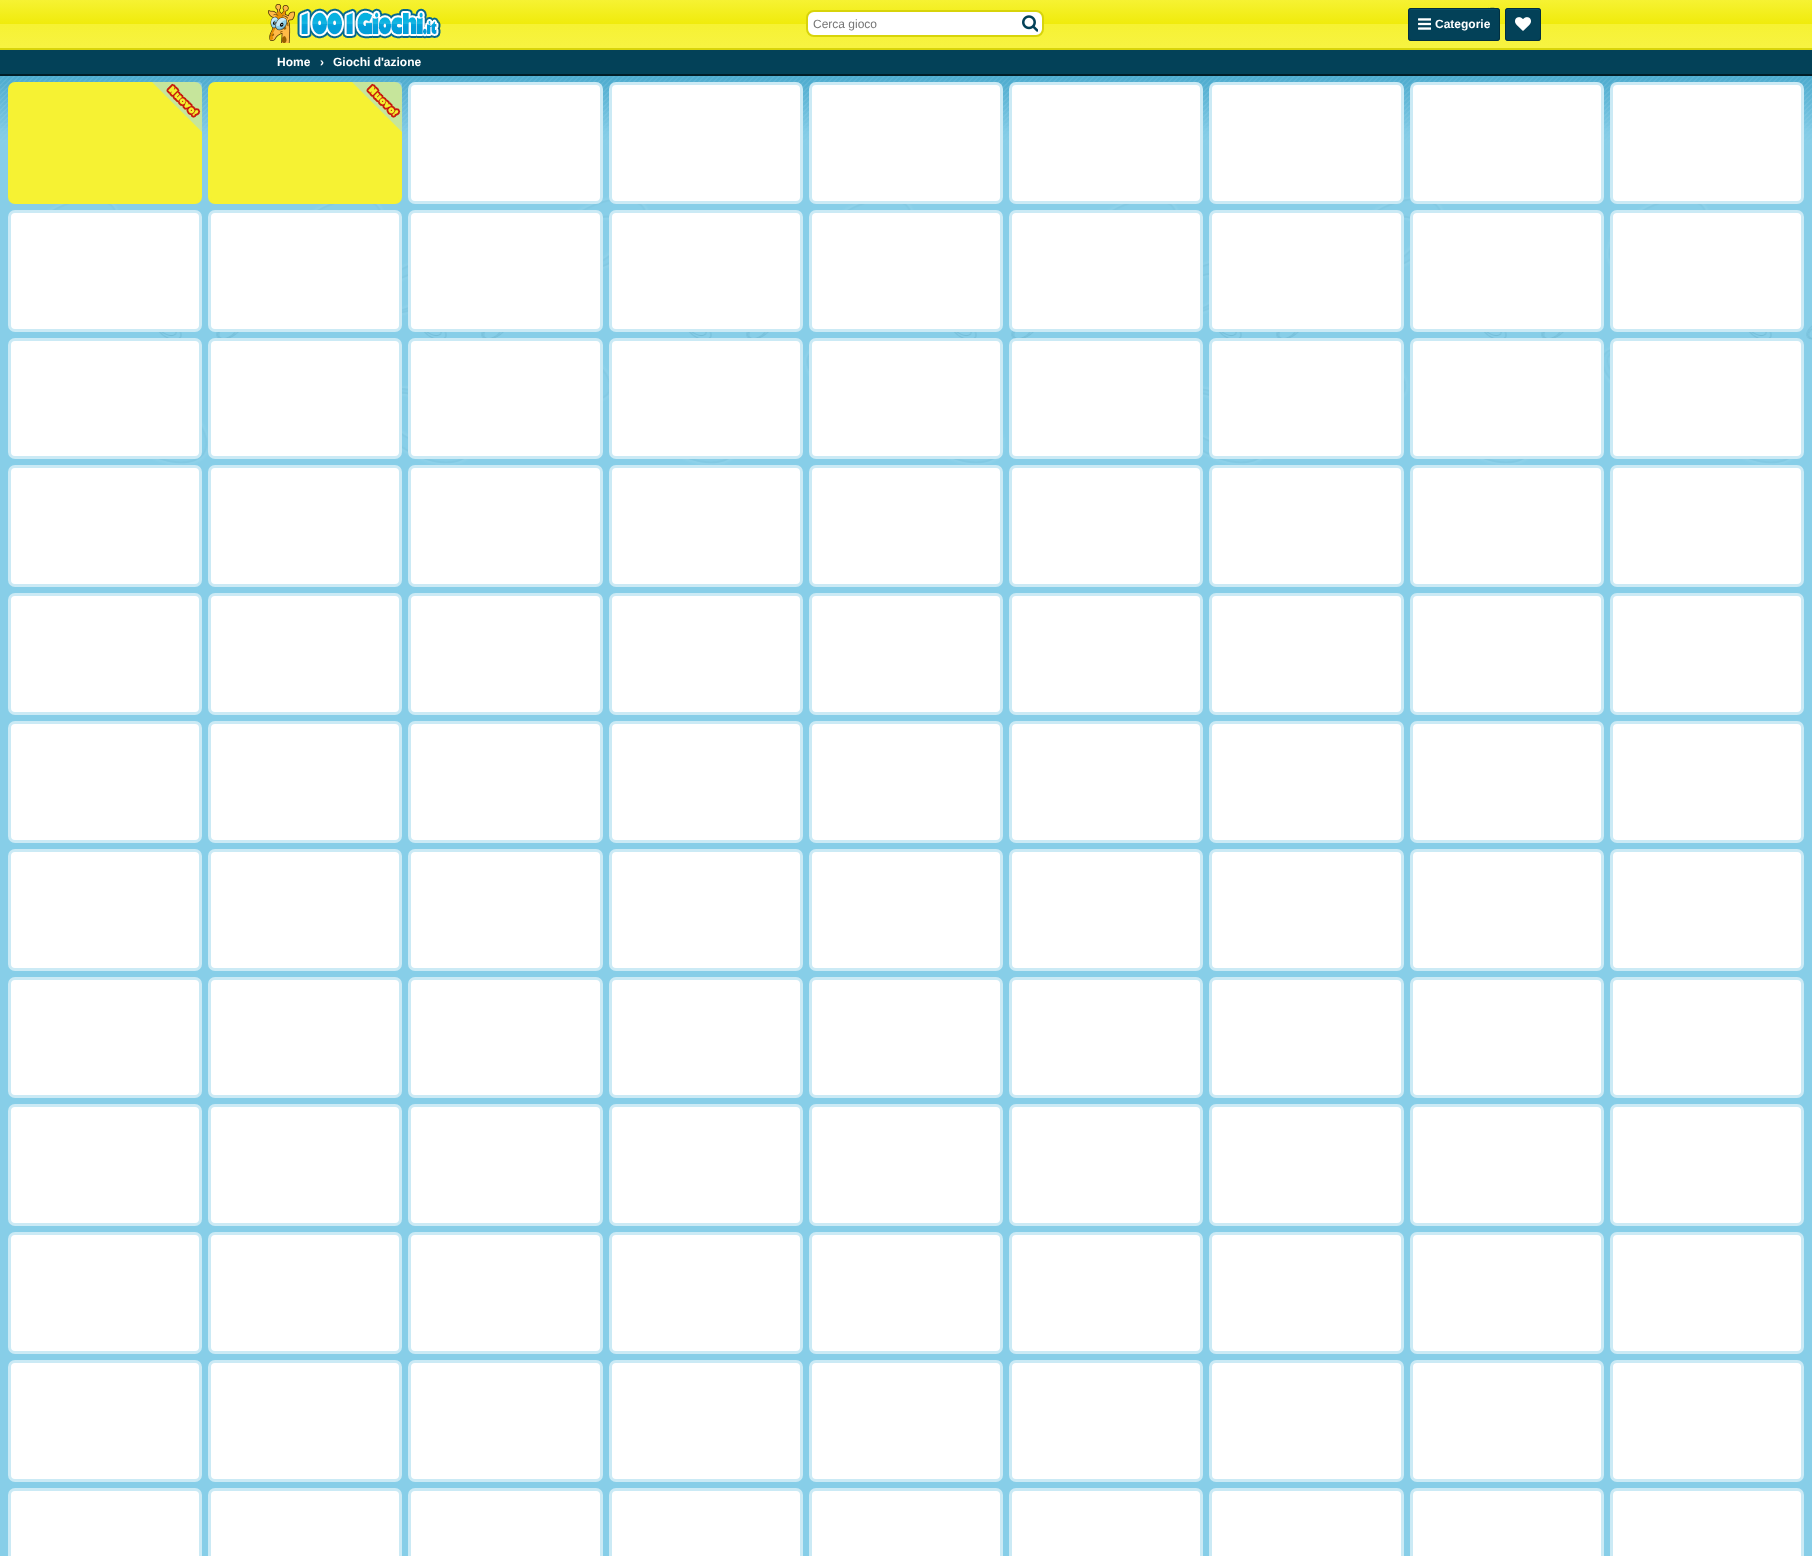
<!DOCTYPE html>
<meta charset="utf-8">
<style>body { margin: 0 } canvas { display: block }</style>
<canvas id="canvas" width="1812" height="1556"></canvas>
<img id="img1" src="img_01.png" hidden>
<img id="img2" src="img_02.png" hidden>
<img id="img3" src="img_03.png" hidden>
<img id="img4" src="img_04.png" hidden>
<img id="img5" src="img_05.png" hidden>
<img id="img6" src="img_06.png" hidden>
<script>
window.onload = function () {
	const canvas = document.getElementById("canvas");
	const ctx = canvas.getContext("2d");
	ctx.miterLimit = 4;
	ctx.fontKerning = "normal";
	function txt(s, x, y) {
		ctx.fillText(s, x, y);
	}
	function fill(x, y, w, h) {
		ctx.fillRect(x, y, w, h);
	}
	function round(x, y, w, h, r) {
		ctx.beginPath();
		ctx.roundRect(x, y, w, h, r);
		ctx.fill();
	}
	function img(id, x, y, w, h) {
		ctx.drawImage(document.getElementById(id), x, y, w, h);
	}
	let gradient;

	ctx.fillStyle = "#87CEE8";
	fill(0, 0, 1812, 1556);
	img("img1", 0, 76, 1812, 389);
	gradient = ctx.createLinearGradient(906, 0, 906, 48);
	gradient.addColorStop(0, "#F6F233");
	gradient.addColorStop(0.5, "#F0EB0B");
	gradient.addColorStop(0.51, "#F6F233");
	gradient.addColorStop(1, "#F7F342");
	ctx.fillStyle = gradient;
	fill(0, 0, 1812, 48);
	ctx.fillStyle = "#D8D40A";
	fill(0, 48, 1812, 2);
	img("img2", 268, 4, 173, 39);
	ctx.fillStyle = "#FFFFFF";
	ctx.beginPath();
	ctx.roundRect(807, 11, 236, 25, 7);
	ctx.fill();
	ctx.strokeStyle = "#D8D40A";
	ctx.lineWidth = 2;
	ctx.stroke();
	img("img3", 1022, 15, 16, 17);
	ctx.fillStyle = "#034158";
	round(1408, 8, 92, 33, 3);
	ctx.fillStyle = "#04506C";
	ctx.beginPath();
	ctx.moveTo(1411, 10);
	ctx.lineTo(1497, 10);
	ctx.bezierCurveTo(1498, 10, 1499, 11, 1499, 12);
	ctx.bezierCurveTo(1499, 5, 1485, 9, 1483, 9);
	ctx.lineTo(1411, 9);
	ctx.bezierCurveTo(1409, 9, 1409, 11, 1409, 12);
	ctx.bezierCurveTo(1409, 11, 1410, 10, 1411, 10);
	ctx.closePath();
	ctx.fill();
	ctx.beginPath();
	ctx.roundRect(1408.5, 8.5, 91, 32, 2.5);
	ctx.strokeStyle = "#022F3F";
	ctx.lineWidth = 1;
	ctx.stroke();
	img("img4", 1418, 18, 13, 12);
	ctx.fillStyle = "#034158";
	round(1505, 8, 36, 33, 3);
	ctx.fillStyle = "#04506C";
	ctx.beginPath();
	ctx.moveTo(1508, 10);
	ctx.lineTo(1538, 10);
	ctx.bezierCurveTo(1539, 10, 1540, 11, 1540, 12);
	ctx.bezierCurveTo(1540, 7.5, 1537, 9, 1533, 9);
	ctx.lineTo(1513, 9);
	ctx.bezierCurveTo(1509, 9, 1506, 7.5, 1506, 12);
	ctx.bezierCurveTo(1506, 11, 1507, 10, 1508, 10);
	ctx.closePath();
	ctx.fill();
	ctx.beginPath();
	ctx.roundRect(1505.5, 8.5, 35, 32, 2.5);
	ctx.stroke();
	img("img5", 1515, 17, 16, 14);
	ctx.fillStyle = "#034158";
	fill(0, 50, 1812, 24);
	ctx.fillStyle = "#011D27";
	fill(0, 74, 1812, 2);
	ctx.fillStyle = "#F6F233";
	ctx.beginPath();
	ctx.roundRect(9.5, 83.5, 191, 119, 5.5);
	ctx.fill();
	ctx.strokeStyle = "#F6F233";
	ctx.lineWidth = 3;
	ctx.stroke();
	img("img6", 152, 82, 50, 50);
	ctx.beginPath();
	ctx.roundRect(209.5, 83.5, 191, 119, 5.5);
	ctx.fill();
	ctx.stroke();
	img("img6", 352, 82, 50, 50);
	ctx.fillStyle = "#FFFFFF";
	ctx.beginPath();
	ctx.roundRect(409.5, 83.5, 192, 119, 5.5);
	ctx.fill();
	ctx.strokeStyle = "#CBEAF5";
	ctx.stroke();
	ctx.beginPath();
	ctx.roundRect(610.5, 83.5, 191, 119, 5.5);
	ctx.fill();
	ctx.stroke();
	ctx.beginPath();
	ctx.roundRect(810.5, 83.5, 191, 119, 5.5);
	ctx.fill();
	ctx.stroke();
	ctx.beginPath();
	ctx.roundRect(1010.5, 83.5, 191, 119, 5.5);
	ctx.fill();
	ctx.stroke();
	ctx.beginPath();
	ctx.roundRect(1210.5, 83.5, 192, 119, 5.5);
	ctx.fill();
	ctx.stroke();
	ctx.beginPath();
	ctx.roundRect(1411.5, 83.5, 191, 119, 5.5);
	ctx.fill();
	ctx.stroke();
	ctx.beginPath();
	ctx.roundRect(1611.5, 83.5, 191, 119, 5.5);
	ctx.fill();
	ctx.stroke();
	ctx.beginPath();
	ctx.roundRect(9.5, 211.5, 191, 119, 5.5);
	ctx.fill();
	ctx.stroke();
	ctx.beginPath();
	ctx.roundRect(209.5, 211.5, 191, 119, 5.5);
	ctx.fill();
	ctx.stroke();
	ctx.beginPath();
	ctx.roundRect(409.5, 211.5, 192, 119, 5.5);
	ctx.fill();
	ctx.stroke();
	ctx.beginPath();
	ctx.roundRect(610.5, 211.5, 191, 119, 5.5);
	ctx.fill();
	ctx.stroke();
	ctx.beginPath();
	ctx.roundRect(810.5, 211.5, 191, 119, 5.5);
	ctx.fill();
	ctx.stroke();
	ctx.beginPath();
	ctx.roundRect(1010.5, 211.5, 191, 119, 5.5);
	ctx.fill();
	ctx.stroke();
	ctx.beginPath();
	ctx.roundRect(1210.5, 211.5, 192, 119, 5.5);
	ctx.fill();
	ctx.stroke();
	ctx.beginPath();
	ctx.roundRect(1411.5, 211.5, 191, 119, 5.5);
	ctx.fill();
	ctx.stroke();
	ctx.beginPath();
	ctx.roundRect(1611.5, 211.5, 191, 119, 5.5);
	ctx.fill();
	ctx.stroke();
	ctx.beginPath();
	ctx.roundRect(9.5, 339.5, 191, 118, 5.5);
	ctx.fill();
	ctx.stroke();
	ctx.beginPath();
	ctx.roundRect(209.5, 339.5, 191, 118, 5.5);
	ctx.fill();
	ctx.stroke();
	ctx.beginPath();
	ctx.roundRect(409.5, 339.5, 192, 118, 5.5);
	ctx.fill();
	ctx.stroke();
	ctx.beginPath();
	ctx.roundRect(610.5, 339.5, 191, 118, 5.5);
	ctx.fill();
	ctx.stroke();
	ctx.beginPath();
	ctx.roundRect(810.5, 339.5, 191, 118, 5.5);
	ctx.fill();
	ctx.stroke();
	ctx.beginPath();
	ctx.roundRect(1010.5, 339.5, 191, 118, 5.5);
	ctx.fill();
	ctx.stroke();
	ctx.beginPath();
	ctx.roundRect(1210.5, 339.5, 192, 118, 5.5);
	ctx.fill();
	ctx.stroke();
	ctx.beginPath();
	ctx.roundRect(1411.5, 339.5, 191, 118, 5.5);
	ctx.fill();
	ctx.stroke();
	ctx.beginPath();
	ctx.roundRect(1611.5, 339.5, 191, 118, 5.5);
	ctx.fill();
	ctx.stroke();
	ctx.beginPath();
	ctx.roundRect(9.5, 466.5, 191, 119, 5.5);
	ctx.fill();
	ctx.stroke();
	ctx.beginPath();
	ctx.roundRect(209.5, 466.5, 191, 119, 5.5);
	ctx.fill();
	ctx.stroke();
	ctx.beginPath();
	ctx.roundRect(409.5, 466.5, 192, 119, 5.5);
	ctx.fill();
	ctx.stroke();
	ctx.beginPath();
	ctx.roundRect(610.5, 466.5, 191, 119, 5.5);
	ctx.fill();
	ctx.stroke();
	ctx.beginPath();
	ctx.roundRect(810.5, 466.5, 191, 119, 5.5);
	ctx.fill();
	ctx.stroke();
	ctx.beginPath();
	ctx.roundRect(1010.5, 466.5, 191, 119, 5.5);
	ctx.fill();
	ctx.stroke();
	ctx.beginPath();
	ctx.roundRect(1210.5, 466.5, 192, 119, 5.5);
	ctx.fill();
	ctx.stroke();
	ctx.beginPath();
	ctx.roundRect(1411.5, 466.5, 191, 119, 5.5);
	ctx.fill();
	ctx.stroke();
	ctx.beginPath();
	ctx.roundRect(1611.5, 466.5, 191, 119, 5.5);
	ctx.fill();
	ctx.stroke();
	ctx.beginPath();
	ctx.roundRect(9.5, 594.5, 191, 119, 5.5);
	ctx.fill();
	ctx.stroke();
	ctx.beginPath();
	ctx.roundRect(209.5, 594.5, 191, 119, 5.5);
	ctx.fill();
	ctx.stroke();
	ctx.beginPath();
	ctx.roundRect(409.5, 594.5, 192, 119, 5.5);
	ctx.fill();
	ctx.stroke();
	ctx.beginPath();
	ctx.roundRect(610.5, 594.5, 191, 119, 5.5);
	ctx.fill();
	ctx.stroke();
	ctx.beginPath();
	ctx.roundRect(810.5, 594.5, 191, 119, 5.5);
	ctx.fill();
	ctx.stroke();
	ctx.beginPath();
	ctx.roundRect(1010.5, 594.5, 191, 119, 5.5);
	ctx.fill();
	ctx.stroke();
	ctx.beginPath();
	ctx.roundRect(1210.5, 594.5, 192, 119, 5.5);
	ctx.fill();
	ctx.stroke();
	ctx.beginPath();
	ctx.roundRect(1411.5, 594.5, 191, 119, 5.5);
	ctx.fill();
	ctx.stroke();
	ctx.beginPath();
	ctx.roundRect(1611.5, 594.5, 191, 119, 5.5);
	ctx.fill();
	ctx.stroke();
	ctx.beginPath();
	ctx.roundRect(9.5, 722.5, 191, 119, 5.5);
	ctx.fill();
	ctx.stroke();
	ctx.beginPath();
	ctx.roundRect(209.5, 722.5, 191, 119, 5.5);
	ctx.fill();
	ctx.stroke();
	ctx.beginPath();
	ctx.roundRect(409.5, 722.5, 192, 119, 5.5);
	ctx.fill();
	ctx.stroke();
	ctx.beginPath();
	ctx.roundRect(610.5, 722.5, 191, 119, 5.5);
	ctx.fill();
	ctx.stroke();
	ctx.beginPath();
	ctx.roundRect(810.5, 722.5, 191, 119, 5.5);
	ctx.fill();
	ctx.stroke();
	ctx.beginPath();
	ctx.roundRect(1010.5, 722.5, 191, 119, 5.5);
	ctx.fill();
	ctx.stroke();
	ctx.beginPath();
	ctx.roundRect(1210.5, 722.5, 192, 119, 5.5);
	ctx.fill();
	ctx.stroke();
	ctx.beginPath();
	ctx.roundRect(1411.5, 722.5, 191, 119, 5.5);
	ctx.fill();
	ctx.stroke();
	ctx.beginPath();
	ctx.roundRect(1611.5, 722.5, 191, 119, 5.5);
	ctx.fill();
	ctx.stroke();
	ctx.beginPath();
	ctx.roundRect(9.5, 850.5, 191, 119, 5.5);
	ctx.fill();
	ctx.stroke();
	ctx.beginPath();
	ctx.roundRect(209.5, 850.5, 191, 119, 5.5);
	ctx.fill();
	ctx.stroke();
	ctx.beginPath();
	ctx.roundRect(409.5, 850.5, 192, 119, 5.5);
	ctx.fill();
	ctx.stroke();
	ctx.beginPath();
	ctx.roundRect(610.5, 850.5, 191, 119, 5.5);
	ctx.fill();
	ctx.stroke();
	ctx.beginPath();
	ctx.roundRect(810.5, 850.5, 191, 119, 5.5);
	ctx.fill();
	ctx.stroke();
	ctx.beginPath();
	ctx.roundRect(1010.5, 850.5, 191, 119, 5.5);
	ctx.fill();
	ctx.stroke();
	ctx.beginPath();
	ctx.roundRect(1210.5, 850.5, 192, 119, 5.5);
	ctx.fill();
	ctx.stroke();
	ctx.beginPath();
	ctx.roundRect(1411.5, 850.5, 191, 119, 5.5);
	ctx.fill();
	ctx.stroke();
	ctx.beginPath();
	ctx.roundRect(1611.5, 850.5, 191, 119, 5.5);
	ctx.fill();
	ctx.stroke();
	ctx.beginPath();
	ctx.roundRect(9.5, 978.5, 191, 118, 5.5);
	ctx.fill();
	ctx.stroke();
	ctx.beginPath();
	ctx.roundRect(209.5, 978.5, 191, 118, 5.5);
	ctx.fill();
	ctx.stroke();
	ctx.beginPath();
	ctx.roundRect(409.5, 978.5, 192, 118, 5.5);
	ctx.fill();
	ctx.stroke();
	ctx.beginPath();
	ctx.roundRect(610.5, 978.5, 191, 118, 5.5);
	ctx.fill();
	ctx.stroke();
	ctx.beginPath();
	ctx.roundRect(810.5, 978.5, 191, 118, 5.5);
	ctx.fill();
	ctx.stroke();
	ctx.beginPath();
	ctx.roundRect(1010.5, 978.5, 191, 118, 5.5);
	ctx.fill();
	ctx.stroke();
	ctx.beginPath();
	ctx.roundRect(1210.5, 978.5, 192, 118, 5.5);
	ctx.fill();
	ctx.stroke();
	ctx.beginPath();
	ctx.roundRect(1411.5, 978.5, 191, 118, 5.5);
	ctx.fill();
	ctx.stroke();
	ctx.beginPath();
	ctx.roundRect(1611.5, 978.5, 191, 118, 5.5);
	ctx.fill();
	ctx.stroke();
	ctx.beginPath();
	ctx.roundRect(9.5, 1105.5, 191, 119, 5.5);
	ctx.fill();
	ctx.stroke();
	ctx.beginPath();
	ctx.roundRect(209.5, 1105.5, 191, 119, 5.5);
	ctx.fill();
	ctx.stroke();
	ctx.beginPath();
	ctx.roundRect(409.5, 1105.5, 192, 119, 5.5);
	ctx.fill();
	ctx.stroke();
	ctx.beginPath();
	ctx.roundRect(610.5, 1105.5, 191, 119, 5.5);
	ctx.fill();
	ctx.stroke();
	ctx.beginPath();
	ctx.roundRect(810.5, 1105.5, 191, 119, 5.5);
	ctx.fill();
	ctx.stroke();
	ctx.beginPath();
	ctx.roundRect(1010.5, 1105.5, 191, 119, 5.5);
	ctx.fill();
	ctx.stroke();
	ctx.beginPath();
	ctx.roundRect(1210.5, 1105.5, 192, 119, 5.5);
	ctx.fill();
	ctx.stroke();
	ctx.beginPath();
	ctx.roundRect(1411.5, 1105.5, 191, 119, 5.5);
	ctx.fill();
	ctx.stroke();
	ctx.beginPath();
	ctx.roundRect(1611.5, 1105.5, 191, 119, 5.5);
	ctx.fill();
	ctx.stroke();
	ctx.beginPath();
	ctx.roundRect(9.5, 1233.5, 191, 119, 5.5);
	ctx.fill();
	ctx.stroke();
	ctx.beginPath();
	ctx.roundRect(209.5, 1233.5, 191, 119, 5.5);
	ctx.fill();
	ctx.stroke();
	ctx.beginPath();
	ctx.roundRect(409.5, 1233.5, 192, 119, 5.5);
	ctx.fill();
	ctx.stroke();
	ctx.beginPath();
	ctx.roundRect(610.5, 1233.5, 191, 119, 5.5);
	ctx.fill();
	ctx.stroke();
	ctx.beginPath();
	ctx.roundRect(810.5, 1233.5, 191, 119, 5.5);
	ctx.fill();
	ctx.stroke();
	ctx.beginPath();
	ctx.roundRect(1010.5, 1233.5, 191, 119, 5.5);
	ctx.fill();
	ctx.stroke();
	ctx.beginPath();
	ctx.roundRect(1210.5, 1233.5, 192, 119, 5.5);
	ctx.fill();
	ctx.stroke();
	ctx.beginPath();
	ctx.roundRect(1411.5, 1233.5, 191, 119, 5.5);
	ctx.fill();
	ctx.stroke();
	ctx.beginPath();
	ctx.roundRect(1611.5, 1233.5, 191, 119, 5.5);
	ctx.fill();
	ctx.stroke();
	ctx.beginPath();
	ctx.roundRect(9.5, 1361.5, 191, 119, 5.5);
	ctx.fill();
	ctx.stroke();
	ctx.beginPath();
	ctx.roundRect(209.5, 1361.5, 191, 119, 5.5);
	ctx.fill();
	ctx.stroke();
	ctx.beginPath();
	ctx.roundRect(409.5, 1361.5, 192, 119, 5.5);
	ctx.fill();
	ctx.stroke();
	ctx.beginPath();
	ctx.roundRect(610.5, 1361.5, 191, 119, 5.5);
	ctx.fill();
	ctx.stroke();
	ctx.beginPath();
	ctx.roundRect(810.5, 1361.5, 191, 119, 5.5);
	ctx.fill();
	ctx.stroke();
	ctx.beginPath();
	ctx.roundRect(1010.5, 1361.5, 191, 119, 5.5);
	ctx.fill();
	ctx.stroke();
	ctx.beginPath();
	ctx.roundRect(1210.5, 1361.5, 192, 119, 5.5);
	ctx.fill();
	ctx.stroke();
	ctx.beginPath();
	ctx.roundRect(1411.5, 1361.5, 191, 119, 5.5);
	ctx.fill();
	ctx.stroke();
	ctx.beginPath();
	ctx.roundRect(1611.5, 1361.5, 191, 119, 5.5);
	ctx.fill();
	ctx.stroke();
	ctx.beginPath();
	ctx.roundRect(9.5, 1489.5, 191, 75, 5.5);
	ctx.fill();
	ctx.stroke();
	ctx.beginPath();
	ctx.roundRect(209.5, 1489.5, 191, 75, 5.5);
	ctx.fill();
	ctx.stroke();
	ctx.beginPath();
	ctx.roundRect(409.5, 1489.5, 192, 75, 5.5);
	ctx.fill();
	ctx.stroke();
	ctx.beginPath();
	ctx.roundRect(610.5, 1489.5, 191, 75, 5.5);
	ctx.fill();
	ctx.stroke();
	ctx.beginPath();
	ctx.roundRect(810.5, 1489.5, 191, 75, 5.5);
	ctx.fill();
	ctx.stroke();
	ctx.beginPath();
	ctx.roundRect(1010.5, 1489.5, 191, 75, 5.5);
	ctx.fill();
	ctx.stroke();
	ctx.beginPath();
	ctx.roundRect(1210.5, 1489.5, 192, 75, 5.5);
	ctx.fill();
	ctx.stroke();
	ctx.beginPath();
	ctx.roundRect(1411.5, 1489.5, 191, 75, 5.5);
	ctx.fill();
	ctx.stroke();
	ctx.beginPath();
	ctx.roundRect(1611.5, 1489.5, 191, 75, 5.5);
	ctx.fill();
	ctx.stroke();
	ctx.font = "12px Liberation Sans";
	ctx.fillStyle = "#757575";
	txt("Cerca gioco", 813, 28);
	ctx.font = "bold 12px Liberation Sans";
	ctx.fillStyle = "#FFFFFF";
	txt("Categorie", 1435, 28);
	txt("Home", 277, 66);
	txt("›", 320, 66);
	txt("Giochi d'azione", 333, 66);
};
</script>
